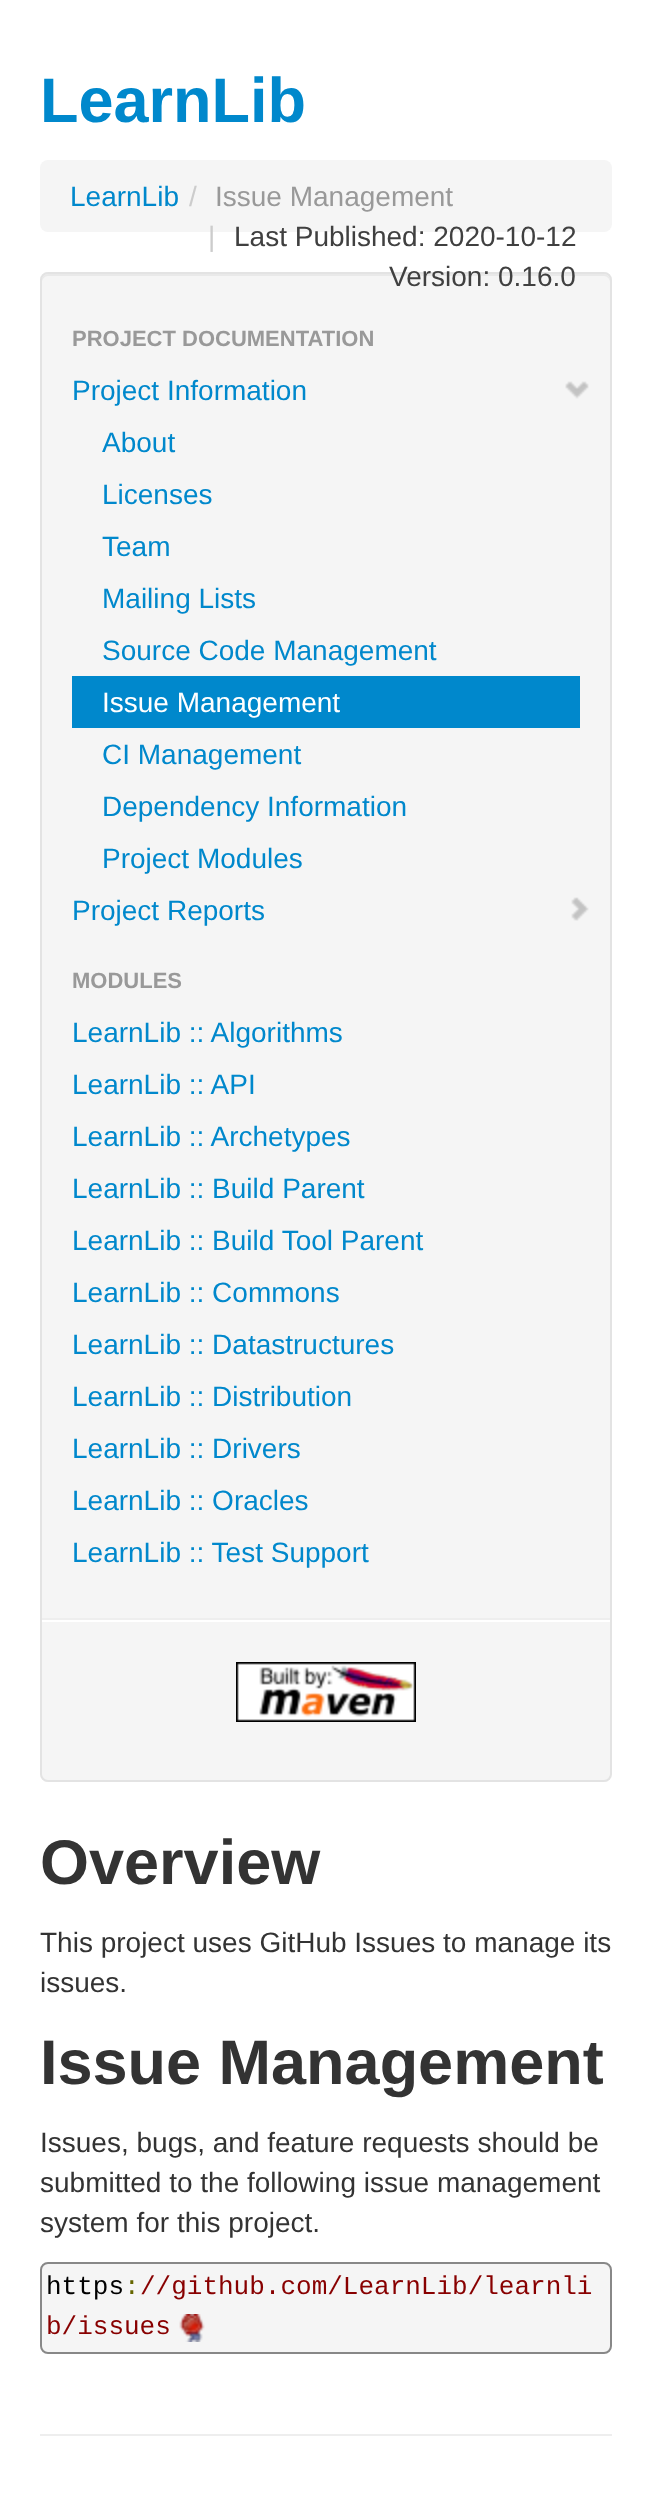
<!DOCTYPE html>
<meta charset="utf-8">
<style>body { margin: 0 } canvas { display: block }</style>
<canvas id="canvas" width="652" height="2518"></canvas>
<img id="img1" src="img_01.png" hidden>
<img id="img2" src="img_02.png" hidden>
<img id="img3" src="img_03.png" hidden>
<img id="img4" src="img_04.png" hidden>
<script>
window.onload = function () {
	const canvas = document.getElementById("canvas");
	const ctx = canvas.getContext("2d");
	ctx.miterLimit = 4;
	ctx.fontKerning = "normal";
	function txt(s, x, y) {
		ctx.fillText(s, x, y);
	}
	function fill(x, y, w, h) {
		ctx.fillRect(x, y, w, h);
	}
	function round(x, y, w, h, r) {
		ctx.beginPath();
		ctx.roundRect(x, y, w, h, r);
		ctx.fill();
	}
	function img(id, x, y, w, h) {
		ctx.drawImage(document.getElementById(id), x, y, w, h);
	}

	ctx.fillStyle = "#FFFFFF";
	fill(0, 0, 652, 2518);
	ctx.fillStyle = "#F5F5F5";
	round(40, 160, 572, 72, 8);
	round(40, 272, 572, 1510, 8);
	ctx.fillStyle = "#E9E9E9";
	ctx.beginPath();
	ctx.moveTo(48, 276);
	ctx.lineTo(604, 276);
	ctx.bezierCurveTo(607, 276, 610, 279, 610, 282);
	ctx.lineTo(610, 280);
	ctx.bezierCurveTo(610, 277, 607, 274, 604, 274);
	ctx.lineTo(48, 274);
	ctx.bezierCurveTo(45, 274, 42, 277, 42, 280);
	ctx.lineTo(42, 282);
	ctx.bezierCurveTo(42, 279, 45, 276, 48, 276);
	ctx.closePath();
	ctx.fill();
	ctx.beginPath();
	ctx.roundRect(41, 273, 570, 1508, 7);
	ctx.strokeStyle = "#E3E3E3";
	ctx.lineWidth = 2;
	ctx.stroke();
	img("img1", 565, 381, 24, 18);
	ctx.fillStyle = "#0088CC";
	fill(72, 676, 508, 52);
	img("img2", 571, 897, 18, 24);
	ctx.fillStyle = "#EEEEEE";
	fill(42, 1618, 568, 2);
	ctx.fillStyle = "#FFFFFF";
	fill(42, 1620, 568, 2);
	img("img3", 236, 1662, 180, 60);
	ctx.fillStyle = "#F5F5F5";
	ctx.beginPath();
	ctx.roundRect(41, 2263, 570, 90, 7);
	ctx.fill();
	ctx.strokeStyle = "#888888";
	ctx.stroke();
	img("img4", 179, 2314, 26, 28);
	ctx.fillStyle = "#EEEEEE";
	fill(40, 2434, 572, 2);
	ctx.font = "bold 63px Liberation Sans";
	ctx.fillStyle = "#0088CC";
	txt("LearnLib", 40, 122);
	ctx.font = "28px Liberation Sans";
	txt("LearnLib", 70, 206);
	ctx.fillStyle = "#CCCCCC";
	txt("/", 189, 206);
	ctx.fillStyle = "#999999";
	txt("Issue Management", 215, 206);
	ctx.fillStyle = "#CCCCCC";
	txt("|", 208, 246);
	ctx.fillStyle = "#404040";
	txt("Last Published: 2020-10-12", 234, 246);
	txt("Version: 0.16.0", 389, 286);
	ctx.font = "bold 22px Liberation Sans";
	ctx.fillStyle = "#999999";
	txt("PROJECT DOCUMENTATION", 72, 346);
	ctx.font = "28px Liberation Sans";
	ctx.fillStyle = "#0088CC";
	txt("Project Information", 72, 400);
	txt("About", 102, 452);
	txt("Licenses", 102, 504);
	txt("Team", 102, 556);
	txt("Mailing Lists", 102, 608);
	txt("Source Code Management", 102, 660);
	ctx.fillStyle = "#FFFFFF";
	txt("Issue Management", 102, 712);
	ctx.fillStyle = "#0088CC";
	txt("CI Management", 102, 764);
	txt("Dependency Information", 102, 816);
	txt("Project Modules", 102, 868);
	txt("Project Reports", 72, 920);
	ctx.font = "bold 22px Liberation Sans";
	ctx.fillStyle = "#999999";
	txt("MODULES", 72, 988);
	ctx.font = "28px Liberation Sans";
	ctx.fillStyle = "#0088CC";
	txt("LearnLib :: Algorithms", 72, 1042);
	txt("LearnLib :: API", 72, 1094);
	txt("LearnLib :: Archetypes", 72, 1146);
	txt("LearnLib :: Build Parent", 72, 1198);
	txt("LearnLib :: Build Tool Parent", 72, 1250);
	txt("LearnLib :: Commons", 72, 1302);
	txt("LearnLib :: Datastructures", 72, 1354);
	txt("LearnLib :: Distribution", 72, 1406);
	txt("LearnLib :: Drivers", 72, 1458);
	txt("LearnLib :: Oracles", 72, 1510);
	txt("LearnLib :: Test Support", 72, 1562);
	ctx.font = "bold 63px Liberation Sans";
	ctx.fillStyle = "#333333";
	txt("Overview", 40, 1884);
	ctx.font = "28px Liberation Sans";
	txt("This project uses GitHub Issues to manage its", 40, 1952);
	txt("issues.", 40, 1992);
	ctx.font = "bold 63px Liberation Sans";
	txt("Issue Management", 40, 2084);
	ctx.font = "28px Liberation Sans";
	txt("Issues, bugs, and feature requests should be", 40, 2152);
	txt("submitted to the following issue management", 40, 2192);
	txt("system for this project.", 40, 2232);
	ctx.font = "26px Liberation Mono";
	ctx.fillStyle = "#000000";
	txt("https", 46, 2294);
	ctx.fillStyle = "#666600";
	txt(":", 124, 2294);
	ctx.fillStyle = "#880000";
	txt("//github.com/LearnLib/learnli", 140, 2294);
	txt("b/issues", 46, 2334);
};
</script>
